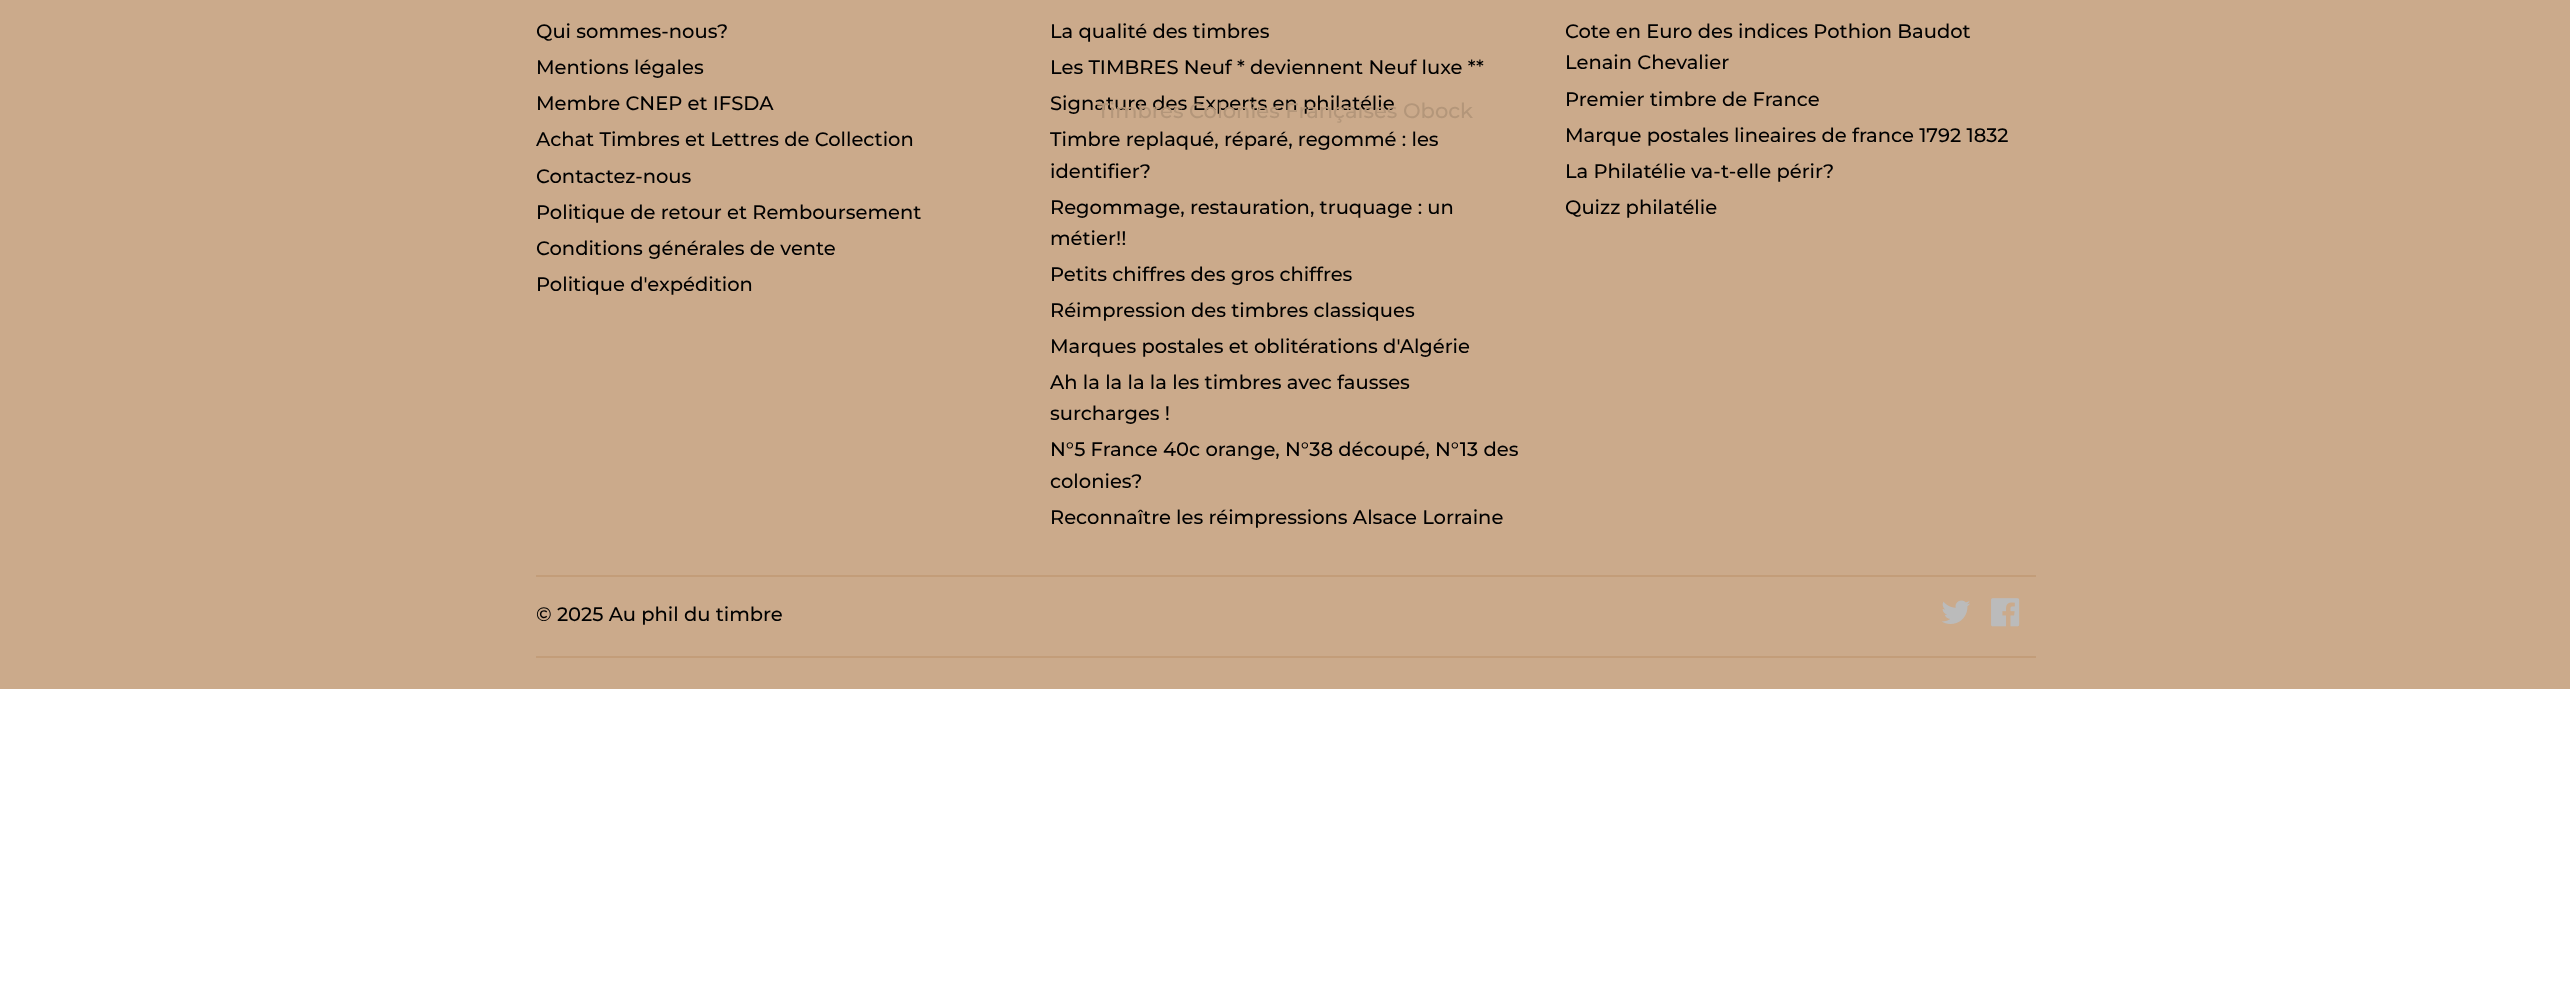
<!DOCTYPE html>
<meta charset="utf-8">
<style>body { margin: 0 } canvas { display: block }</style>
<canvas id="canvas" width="2570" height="992"></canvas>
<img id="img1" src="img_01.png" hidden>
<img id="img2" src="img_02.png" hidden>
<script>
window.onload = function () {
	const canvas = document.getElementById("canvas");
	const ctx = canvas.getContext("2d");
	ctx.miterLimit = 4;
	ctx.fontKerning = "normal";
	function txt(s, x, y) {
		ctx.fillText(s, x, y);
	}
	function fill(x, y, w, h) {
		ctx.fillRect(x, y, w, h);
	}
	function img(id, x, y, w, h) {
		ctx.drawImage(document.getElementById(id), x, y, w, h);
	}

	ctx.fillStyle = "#FFFFFF";
	fill(0, 0, 2570, 992);
	ctx.fillStyle = "#CBAA8B";
	fill(0, 0, 2570, 689);
	ctx.fillStyle = "#C39D79";
	fill(536, 575, 1500, 2);
	img("img1", 1942, 600, 28, 24);
	img("img2", 1991, 598, 29, 29);
	fill(536, 656, 1500, 2);
	ctx.font = "500 19.5px Montserrat";
	ctx.fillStyle = "#000000";
	txt("Qui sommes-nous?", 536, 38);
	txt("Mentions légales", 536, 74);
	txt("Membre CNEP et IFSDA", 536, 110);
	txt("Achat Timbres et Lettres de Collection", 536, 146);
	txt("Contactez-nous", 536, 183);
	txt("Politique de retour et Remboursement", 536, 219);
	txt("Conditions générales de vente", 536, 255);
	txt("Politique d'expédition", 536, 291);
	txt("La qualité des timbres", 1050, 38);
	txt("Les TIMBRES Neuf * deviennent Neuf luxe **", 1050, 74);
	txt("Signature des Experts en philatélie", 1050, 110);
	txt("Timbre replaqué, réparé, regommé : les", 1050, 146);
	txt("identifier?", 1050, 178);
	txt("Regommage, restauration, truquage : un", 1050, 214);
	txt("métier!!", 1050, 245);
	txt("Petits chiffres des gros chiffres", 1050, 281);
	txt("Réimpression des timbres classiques", 1050, 317);
	txt("Marques postales et oblitérations d'Algérie", 1050, 353);
	txt("Ah la la la la les timbres avec fausses", 1050, 389);
	txt("surcharges !", 1050, 420);
	txt("N°5 France 40c orange, N°38 découpé, N°13 des", 1050, 456);
	txt("colonies?", 1050, 488);
	txt("Reconnaître les réimpressions Alsace Lorraine", 1050, 524);
	txt("Cote en Euro des indices Pothion Baudot", 1565, 38);
	txt("Lenain Chevalier", 1565, 69);
	txt("Premier timbre de France", 1565, 106);
	txt("Marque postales lineaires de france 1792 1832", 1565, 142);
	txt("La Philatélie va-t-elle périr?", 1565, 178);
	txt("Quizz philatélie", 1565, 214);
	txt("© 2025 Au phil du timbre", 536, 621);
	ctx.font = "500 21px Montserrat";
	ctx.fillStyle = "#B3967A";
	txt("Timbres Colonies Françaises Obock", 1097, 118);
};
</script>
